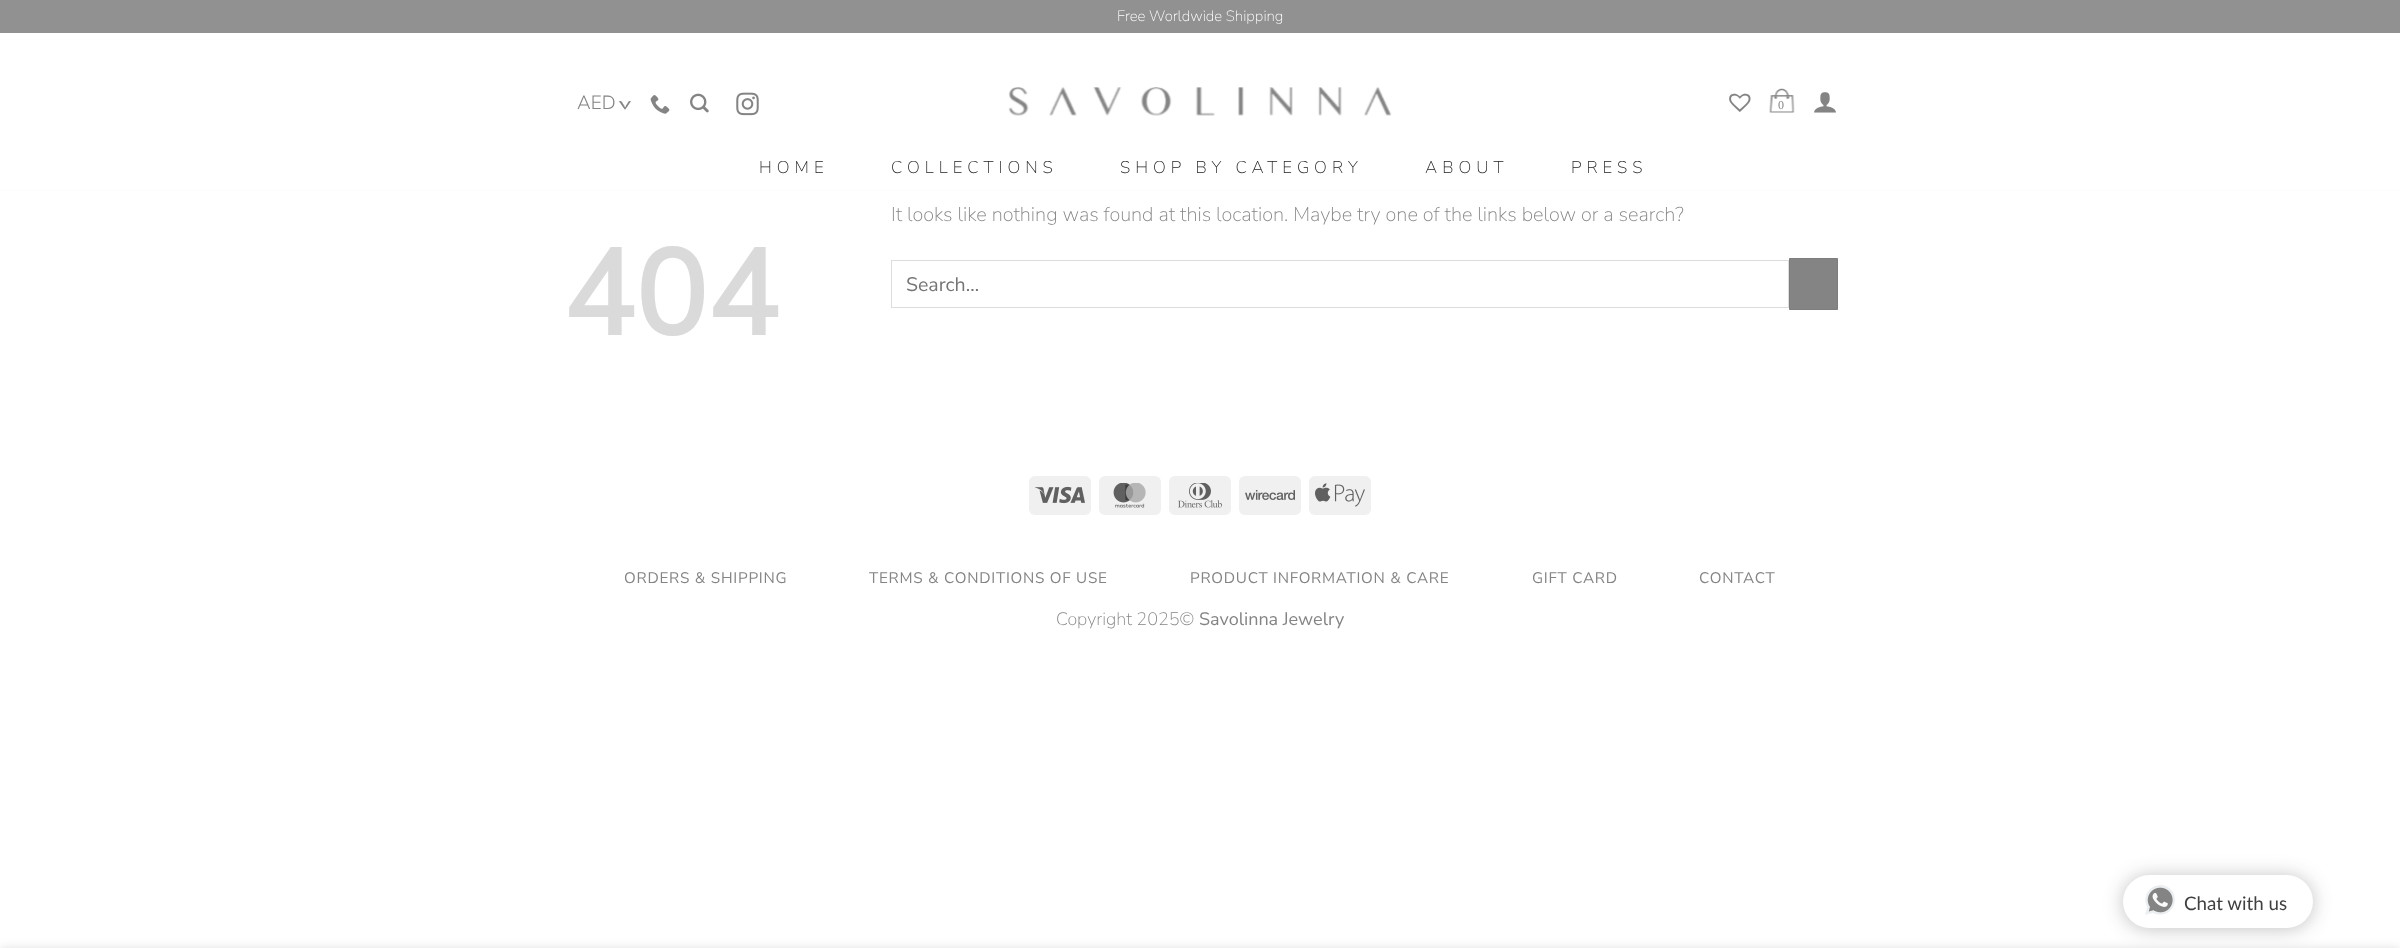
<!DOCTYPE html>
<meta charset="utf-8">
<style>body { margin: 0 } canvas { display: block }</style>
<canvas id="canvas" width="2400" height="948"></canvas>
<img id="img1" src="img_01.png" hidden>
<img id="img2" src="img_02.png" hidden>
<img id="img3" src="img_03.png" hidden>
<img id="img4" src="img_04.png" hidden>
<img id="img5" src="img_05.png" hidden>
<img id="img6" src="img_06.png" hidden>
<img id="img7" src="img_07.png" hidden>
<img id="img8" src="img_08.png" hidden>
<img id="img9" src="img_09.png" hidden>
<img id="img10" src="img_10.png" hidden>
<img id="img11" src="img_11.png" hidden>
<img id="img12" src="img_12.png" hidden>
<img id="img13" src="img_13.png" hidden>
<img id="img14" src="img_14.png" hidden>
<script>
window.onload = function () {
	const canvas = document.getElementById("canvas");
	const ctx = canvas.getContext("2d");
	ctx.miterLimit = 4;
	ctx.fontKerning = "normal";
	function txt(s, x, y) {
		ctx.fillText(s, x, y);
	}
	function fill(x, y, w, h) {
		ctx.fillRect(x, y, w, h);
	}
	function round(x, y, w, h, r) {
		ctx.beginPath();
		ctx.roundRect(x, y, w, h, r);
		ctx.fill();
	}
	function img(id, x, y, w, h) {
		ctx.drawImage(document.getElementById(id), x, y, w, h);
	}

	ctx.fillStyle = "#FFFFFF";
	fill(0, 0, 2400, 948);
	ctx.fillStyle = "#FCFCFC";
	fill(0, 190, 2400, 1);
	ctx.fillStyle = "#919191";
	fill(0, 0, 2400, 33);
	img("img1", 618, 101, 14, 9);
	img("img2", 650, 95, 20, 19);
	img("img3", 690, 93, 19, 20);
	img("img4", 736, 92, 23, 24);
	img("img5", 1008, 87, 384, 29);
	img("img6", 1729, 93, 22, 19);
	img("img7", 1769, 88, 26, 25);
	img("img8", 1814, 92, 22, 21);
	ctx.strokeStyle = "#DDDDDD";
	ctx.strokeRect(891.5, 260.5, 897, 47);
	ctx.fillStyle = "#848484";
	ctx.beginPath();
	ctx.rect(1789.5, 258.5, 48, 51);
	ctx.fill();
	ctx.strokeStyle = "#7D7D7D";
	ctx.stroke();
	ctx.fillStyle = "#F0F0F0";
	round(1029, 476, 62, 39, 6);
	img("img9", 1035, 486, 50, 18);
	round(1099, 476, 62, 39, 6);
	img("img10", 1113, 483, 33, 25);
	round(1169, 476, 62, 39, 6);
	img("img11", 1178, 483, 44, 25);
	round(1239, 476, 62, 39, 6);
	img("img12", 1245, 490, 50, 10);
	round(1309, 476, 62, 39, 6);
	img("img13", 1315, 483, 50, 24);
	ctx.fillStyle = "rgba(32, 33, 36, 0.28)";
	ctx.filter = "blur(9.5px)";
	ctx.beginPath();
	ctx.roundRect(2123, 876, 190, 53, 26.5);
	ctx.fill();
	ctx.filter = "none";
	ctx.fillStyle = "#FFFFFF";
	round(2123, 875, 190, 53, 26.5);
	img("img14", 2145, 885, 30, 30);
	ctx.fillStyle = "rgba(0, 0, 0, 0.14)";
	ctx.filter = "blur(5.5px)";
	ctx.beginPath();
	ctx.rect(0, 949, 2400, 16);
	ctx.fill();
	ctx.filter = "none";
	ctx.font = "200 15px Nunito Sans";
	ctx.fillStyle = "#FFFFFF";
	txt("Free Worldwide Shipping", 1117, 21);
	ctx.font = "300 19px Nunito Sans";
	ctx.fillStyle = "#848484";
	txt("AED", 577, 109);
	ctx.font = "12px Liberation Serif";
	txt("0", 1778, 109);
	ctx.letterSpacing = "5px";
	ctx.font = "200 17px Nunito Sans";
	ctx.fillStyle = "#222222";
	txt("HOME", 759, 173);
	txt("COLLECTIONS", 891, 173);
	txt("SHOP BY CATEGORY", 1120, 173);
	txt("ABOUT", 1425, 173);
	txt("PRESS", 1571, 173);
	ctx.letterSpacing = "0px";
	ctx.font = "bold 120px Nunito Sans";
	ctx.fillStyle = "#DADADA";
	txt("404", 563, 335);
	ctx.font = "200 20px Nunito Sans";
	ctx.fillStyle = "#848484";
	txt("It looks like nothing was found at this location. Maybe try one of the links below or a search?", 891, 221);
	ctx.font = "19.5px Nunito Sans";
	ctx.fillStyle = "#757575";
	txt("Search…", 906, 291);
	ctx.letterSpacing = "0.75px";
	ctx.font = "15.25px Nunito Sans";
	ctx.fillStyle = "#848484";
	txt("ORDERS & SHIPPING", 624, 583);
	txt("TERMS & CONDITIONS OF USE", 869, 583);
	txt("PRODUCT INFORMATION & CARE", 1190, 583);
	txt("GIFT CARD", 1532, 583);
	txt("CONTACT", 1699, 583);
	ctx.letterSpacing = "0px";
	ctx.font = "200 18px Nunito Sans";
	txt("Copyright 2025©", 1056, 625);
	ctx.font = "18px Nunito Sans";
	txt("Savolinna Jewelry", 1199, 625);
	ctx.font = "18.75px Lato";
	ctx.fillStyle = "#404040";
	txt("Chat with us", 2184, 910);
};
</script>
